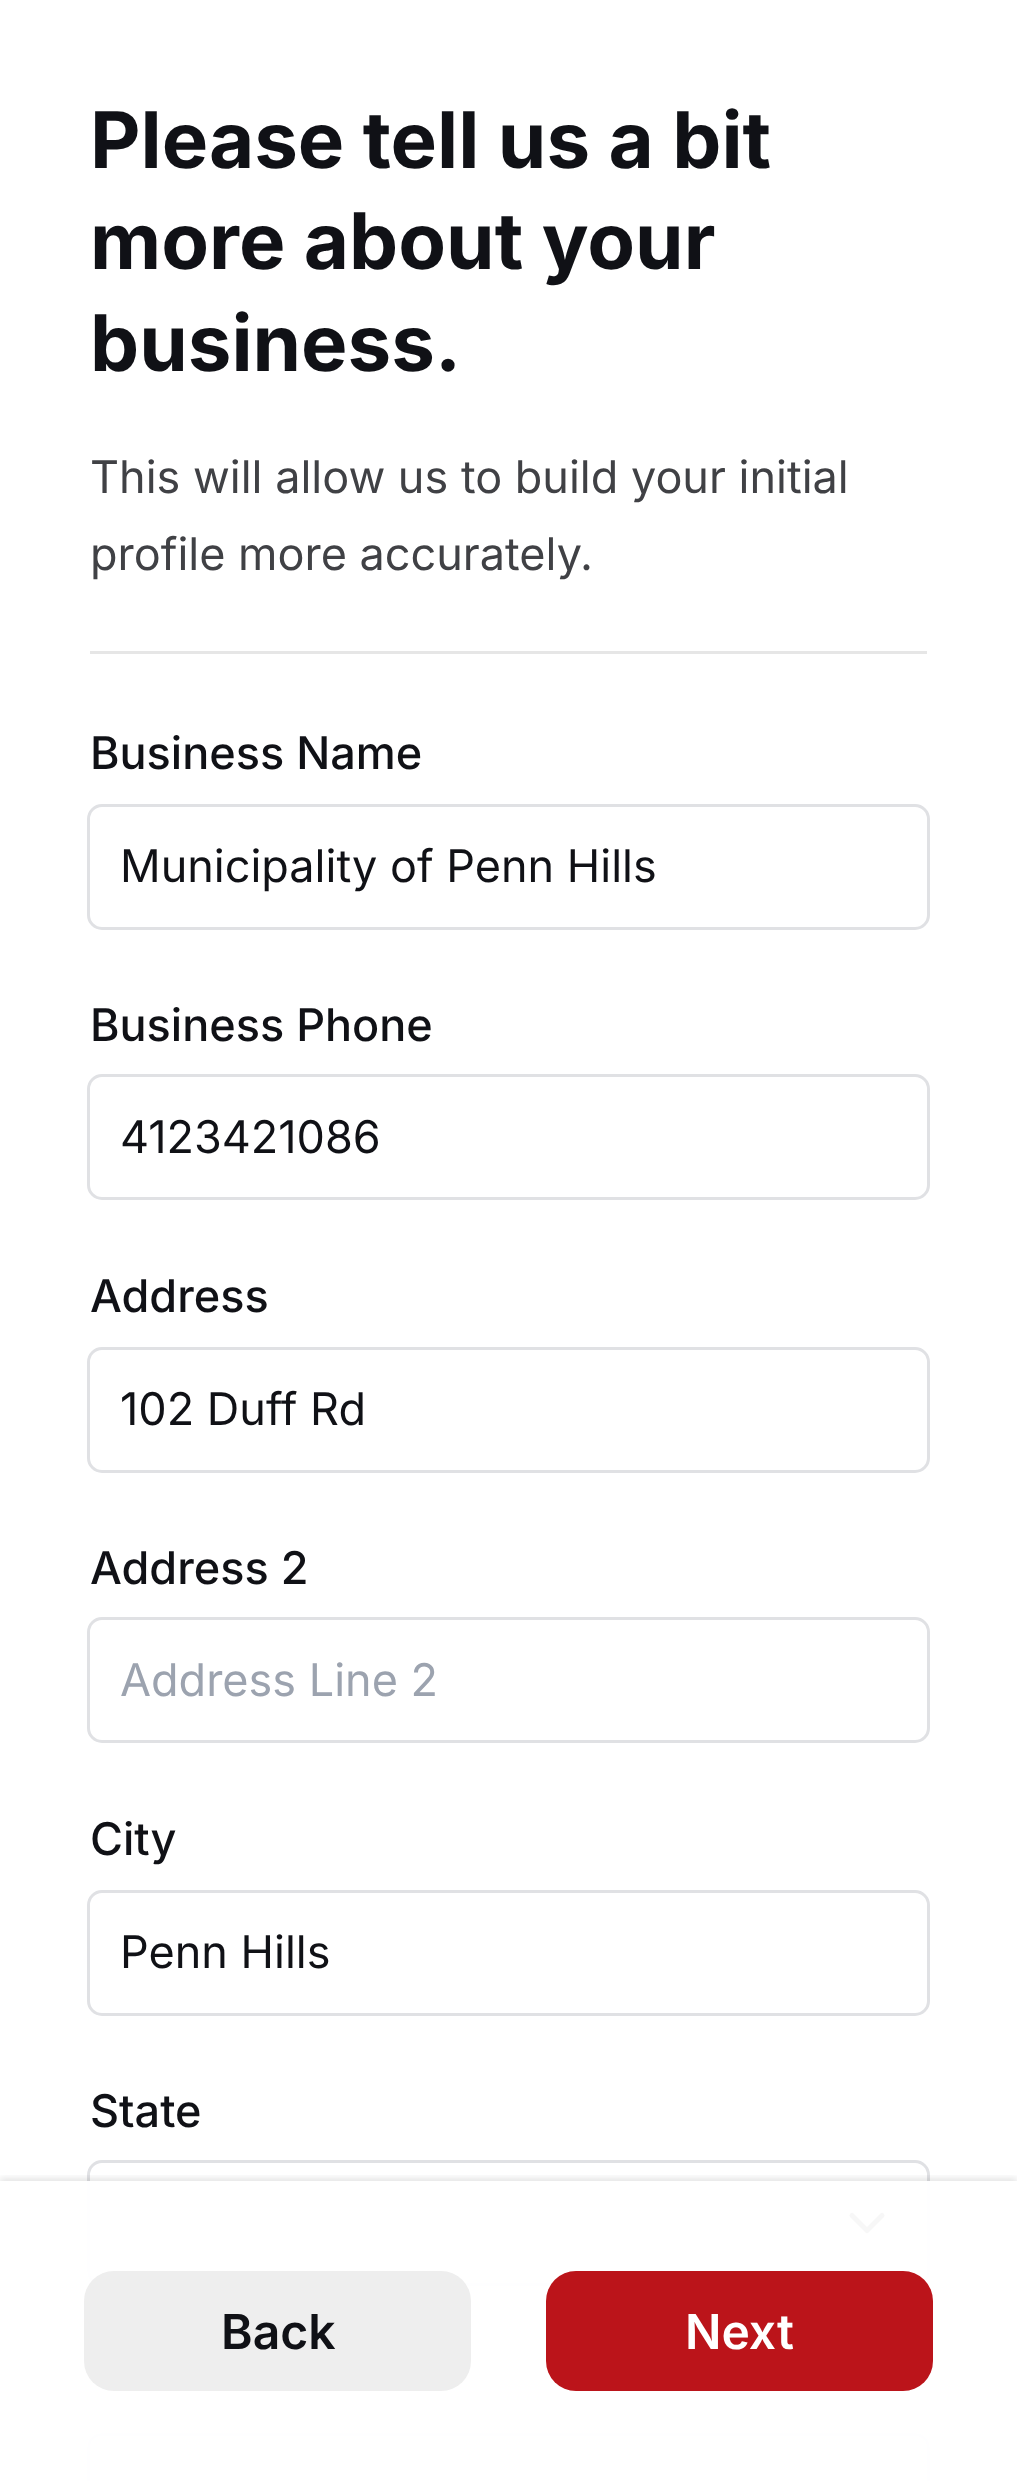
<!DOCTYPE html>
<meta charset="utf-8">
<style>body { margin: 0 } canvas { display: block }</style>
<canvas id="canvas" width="1017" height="2481"></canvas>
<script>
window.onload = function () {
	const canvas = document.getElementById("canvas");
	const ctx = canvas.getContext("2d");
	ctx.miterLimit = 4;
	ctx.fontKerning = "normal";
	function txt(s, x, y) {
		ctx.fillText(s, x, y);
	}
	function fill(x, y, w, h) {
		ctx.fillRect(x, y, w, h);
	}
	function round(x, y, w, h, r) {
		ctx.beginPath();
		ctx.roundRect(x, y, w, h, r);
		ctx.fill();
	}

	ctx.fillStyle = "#FFFFFF";
	fill(0, 0, 1017, 2481);
	ctx.fillStyle = "#E6E6E6";
	fill(90, 651, 837, 3);
	ctx.beginPath();
	ctx.roundRect(88.5, 805.5, 840, 123, 13.5);
	ctx.strokeStyle = "#E0E1E4";
	ctx.lineWidth = 3;
	ctx.stroke();
	ctx.beginPath();
	ctx.roundRect(88.5, 1075.5, 840, 123, 13.5);
	ctx.stroke();
	ctx.beginPath();
	ctx.roundRect(88.5, 1348.5, 840, 123, 13.5);
	ctx.stroke();
	ctx.beginPath();
	ctx.roundRect(88.5, 1618.5, 840, 123, 13.5);
	ctx.stroke();
	ctx.beginPath();
	ctx.roundRect(88.5, 1891.5, 840, 123, 13.5);
	ctx.stroke();
	ctx.beginPath();
	ctx.roundRect(88.5, 2161.5, 840, 123, 13.5);
	ctx.stroke();
	ctx.beginPath();
	ctx.moveTo(852, 2215.5);
	ctx.lineTo(867, 2230.5);
	ctx.lineTo(882, 2215.5);
	ctx.strokeStyle = "#000000";
	ctx.lineWidth = 5;
	ctx.lineCap = "round";
	ctx.lineJoin = "round";
	ctx.stroke();
	ctx.beginPath();
	ctx.roundRect(88.5, 2434.5, 840, 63, 13.5);
	ctx.strokeStyle = "#E0E1E4";
	ctx.lineWidth = 3;
	ctx.lineJoin = "miter";
	ctx.stroke();
	ctx.save();
	ctx.beginPath();
	ctx.rect(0, 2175, 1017, 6);
	ctx.clip();
	ctx.fillStyle = "rgba(0, 0, 0, 0.1)";
	ctx.filter = "blur(3px)";
	ctx.beginPath();
	ctx.rect(0, 2178, 1017, 300);
	ctx.fill();
	ctx.filter = "none";
	ctx.restore();
	ctx.fillStyle = "rgba(255, 255, 255, 0.97)";
	fill(87, 2181, 843, 300);
	ctx.fillStyle = "#EEEEEE";
	round(84, 2271, 387, 120, 30);
	ctx.fillStyle = "#BB141A";
	round(546, 2271, 387, 120, 30);
	ctx.font = "bold 78px Inter";
	ctx.fillStyle = "#101116";
	txt("Please tell us a bit", 90, 168);
	txt("more about your", 90, 269);
	txt("business.", 90, 371);
	ctx.font = "45px Inter";
	ctx.fillStyle = "#404145";
	txt("This will allow us to build your initial", 90, 493);
	txt("profile more accurately.", 90, 570);
	ctx.font = "500 45px Inter";
	ctx.fillStyle = "#101116";
	txt("Business Name", 90, 769);
	ctx.font = "45px Inter";
	txt("Municipality of Penn Hills", 120, 882);
	ctx.font = "500 45px Inter";
	txt("Business Phone", 90, 1041);
	ctx.font = "45px Inter";
	txt("4123421086", 120, 1153);
	ctx.font = "500 45px Inter";
	txt("Address", 90, 1312);
	ctx.font = "45px Inter";
	txt("102 Duff Rd", 120, 1425);
	ctx.font = "500 45px Inter";
	txt("Address 2", 90, 1584);
	ctx.font = "45px Inter";
	ctx.fillStyle = "#9CA3AF";
	txt("Address Line 2", 120, 1696);
	ctx.font = "500 45px Inter";
	ctx.fillStyle = "#101116";
	txt("City", 90, 1855);
	ctx.font = "45px Inter";
	txt("Penn Hills", 120, 1968);
	ctx.font = "500 45px Inter";
	txt("State", 90, 2127);
	ctx.font = "600 48px Inter";
	txt("Back", 221, 2349);
	ctx.fillStyle = "#FFFFFF";
	txt("Next", 685, 2349);
};
</script>
